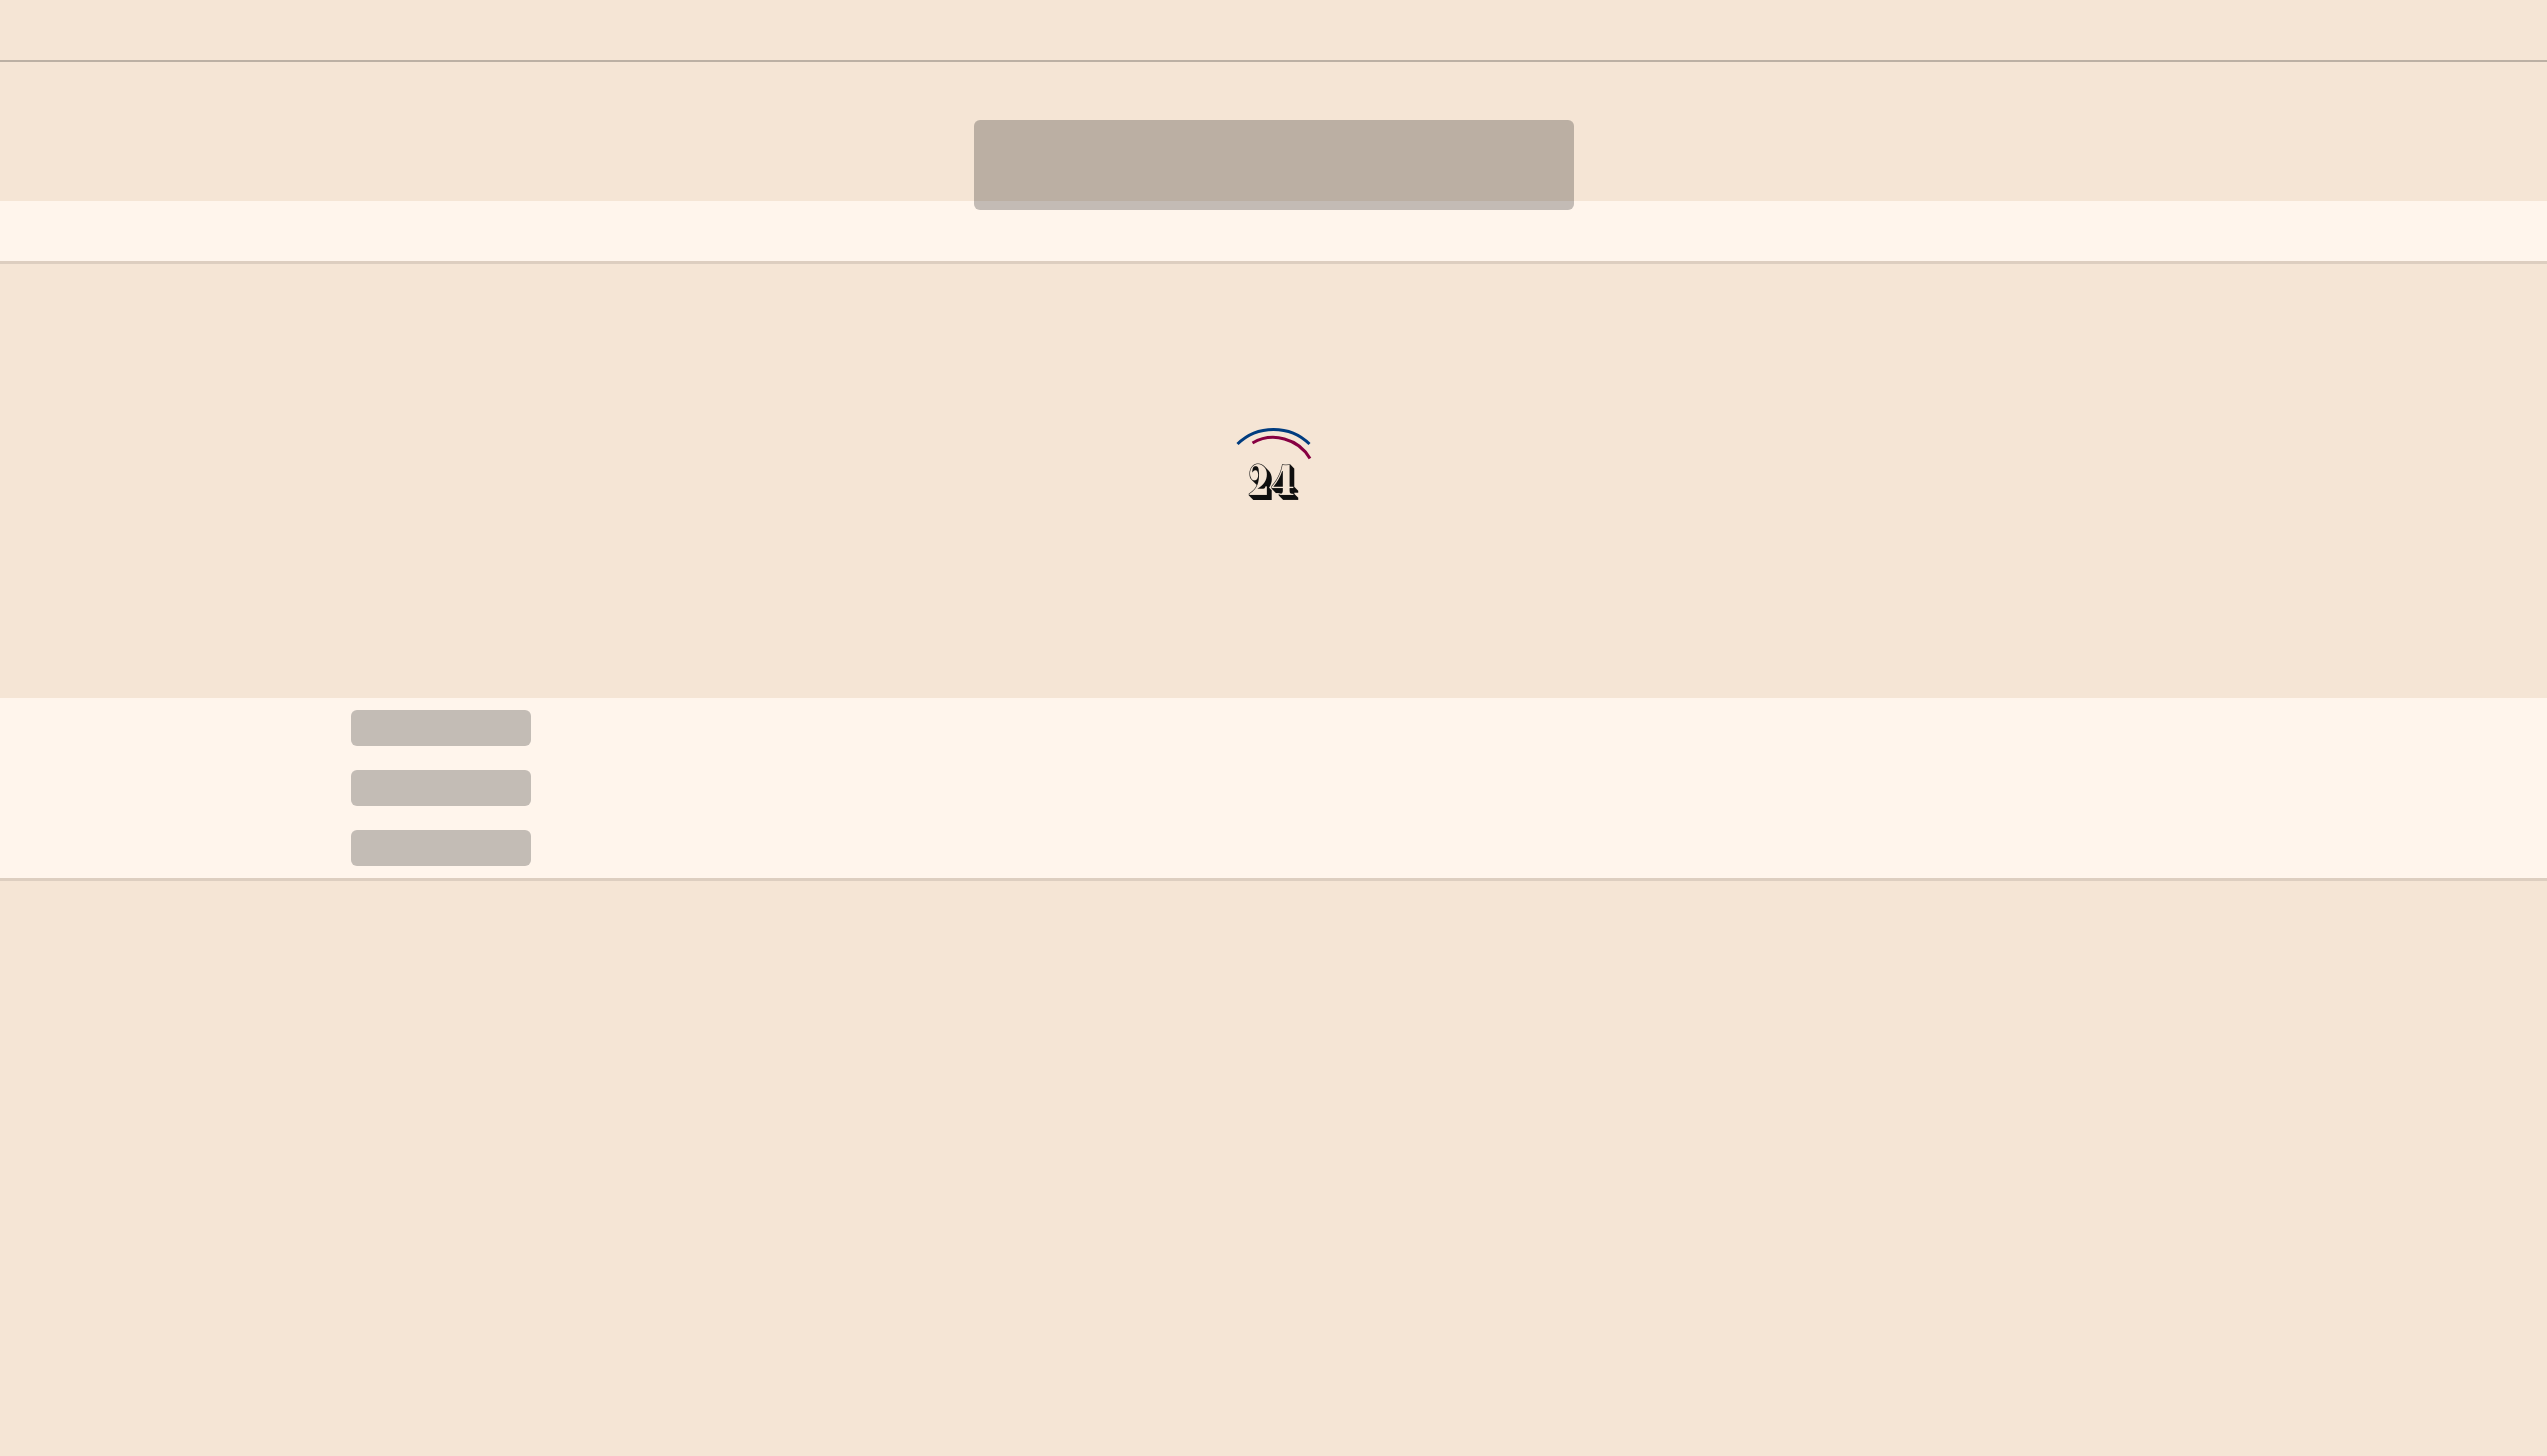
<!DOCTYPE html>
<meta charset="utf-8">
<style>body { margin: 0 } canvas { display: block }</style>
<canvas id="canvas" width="2547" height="1456"></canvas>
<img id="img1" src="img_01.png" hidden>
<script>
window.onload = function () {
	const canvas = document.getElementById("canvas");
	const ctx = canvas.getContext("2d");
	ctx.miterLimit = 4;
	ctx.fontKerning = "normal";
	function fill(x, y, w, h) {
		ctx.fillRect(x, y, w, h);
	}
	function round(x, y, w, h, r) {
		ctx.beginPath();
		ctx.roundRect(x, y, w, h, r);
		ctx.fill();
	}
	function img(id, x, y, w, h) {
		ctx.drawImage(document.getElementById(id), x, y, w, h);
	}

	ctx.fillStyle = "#F5E5D5";
	fill(0, 0, 2547, 1456);
	ctx.fillStyle = "#DDCEC0";
	fill(0, 261, 2547, 3);
	ctx.fillStyle = "#FFF5EC";
	fill(0, 201, 2547, 60);
	ctx.fillStyle = "#BCB0A4";
	fill(0, 60, 2547, 2);
	ctx.fillStyle = "rgba(15, 15, 15, 0.25)";
	round(974, 120, 600, 90, 6);
	ctx.beginPath();
	ctx.moveTo(1237.5, 444);
	ctx.bezierCurveTo(1257, 424.5, 1290, 424.5, 1309.5, 444);
	ctx.strokeStyle = "#003C7F";
	ctx.lineWidth = 3;
	ctx.stroke();
	ctx.beginPath();
	ctx.moveTo(1252.5, 443);
	ctx.bezierCurveTo(1272.5, 431.5, 1298.5, 438.5, 1310, 458.5);
	ctx.strokeStyle = "#870042";
	ctx.stroke();
	img("img1", 1248, 463, 51, 37);
	ctx.fillStyle = "#FFF5EC";
	fill(0, 698, 2547, 180);
	ctx.fillStyle = "#C3BCB5";
	round(351, 710, 180, 36, 6);
	round(351, 770, 180, 36, 6);
	ctx.fillStyle = "#DDCEC0";
	fill(0, 878, 2547, 3);
	ctx.fillStyle = "#C3BCB5";
	round(351, 830, 180, 36, 6);
};
</script>
